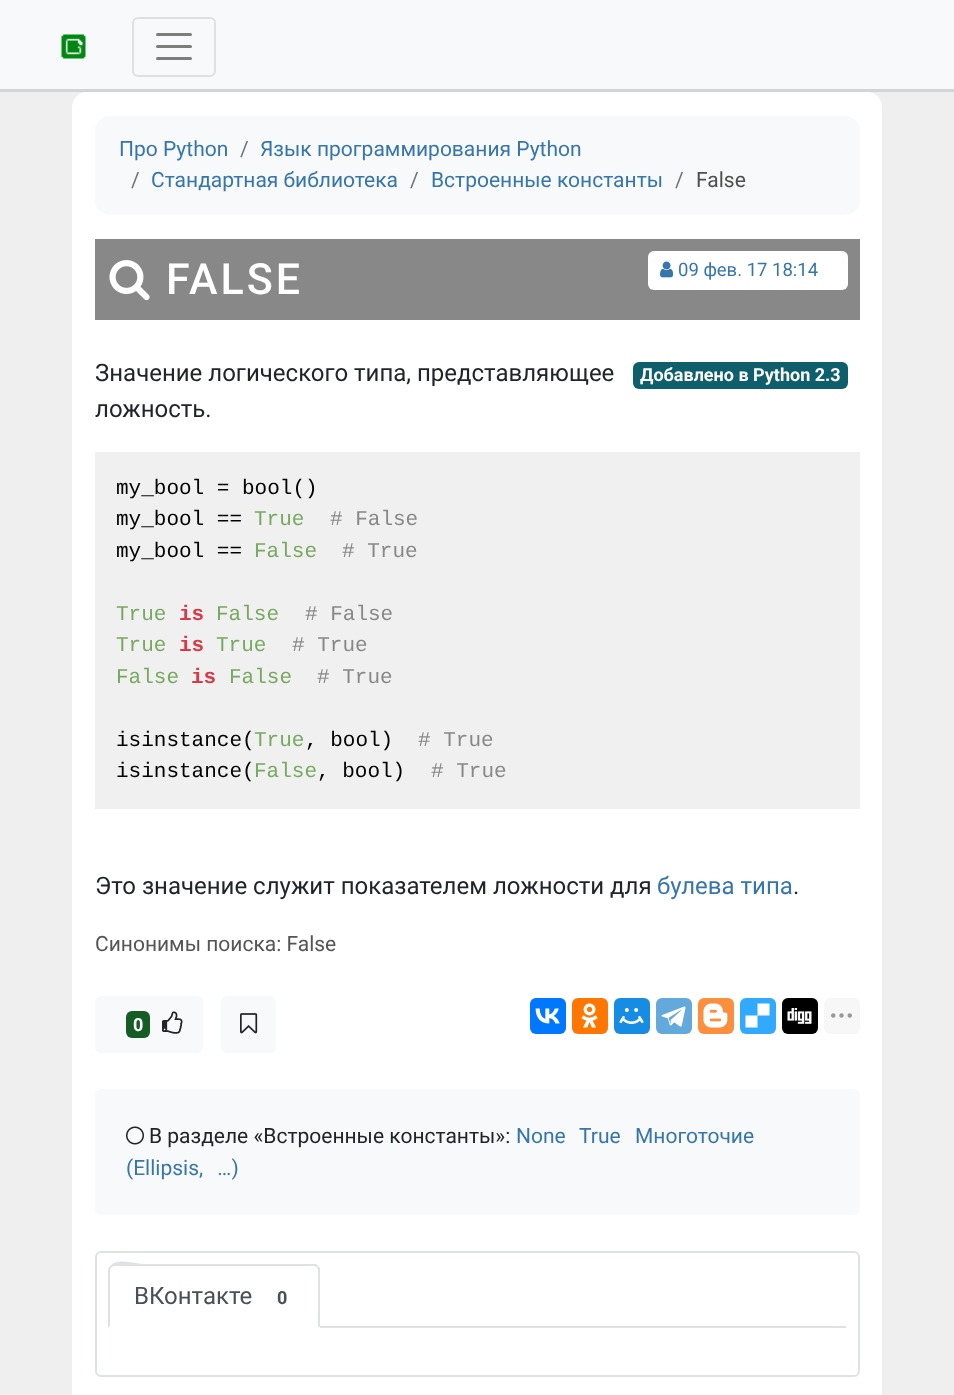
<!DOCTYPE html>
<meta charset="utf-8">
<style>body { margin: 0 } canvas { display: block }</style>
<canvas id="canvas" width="954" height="1395"></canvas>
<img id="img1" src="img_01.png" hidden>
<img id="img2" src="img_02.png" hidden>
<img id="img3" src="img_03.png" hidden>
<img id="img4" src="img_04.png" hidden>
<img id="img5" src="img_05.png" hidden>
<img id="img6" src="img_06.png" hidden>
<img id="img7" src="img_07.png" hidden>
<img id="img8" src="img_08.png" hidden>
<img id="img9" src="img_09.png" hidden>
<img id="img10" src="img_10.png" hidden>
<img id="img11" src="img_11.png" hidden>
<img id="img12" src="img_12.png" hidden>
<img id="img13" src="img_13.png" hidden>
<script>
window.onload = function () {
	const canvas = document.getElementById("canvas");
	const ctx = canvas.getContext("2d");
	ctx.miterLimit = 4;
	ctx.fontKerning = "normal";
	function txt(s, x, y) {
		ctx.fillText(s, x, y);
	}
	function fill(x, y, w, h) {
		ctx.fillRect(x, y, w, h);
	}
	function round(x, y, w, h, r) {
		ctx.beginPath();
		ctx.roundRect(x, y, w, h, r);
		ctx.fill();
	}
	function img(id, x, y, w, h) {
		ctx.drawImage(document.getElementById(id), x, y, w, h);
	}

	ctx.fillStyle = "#EFEFEF";
	fill(0, 0, 954, 1395);
	ctx.fillStyle = "#F8F9FA";
	fill(0, 0, 954, 89);
	ctx.fillStyle = "#D4D4D4";
	fill(0, 89, 954, 3);
	img("img1", 61, 34, 25, 25);
	ctx.beginPath();
	ctx.roundRect(133, 18, 82, 58, 5);
	ctx.strokeStyle = "#DFE0E1";
	ctx.lineWidth = 2;
	ctx.stroke();
	ctx.beginPath();
	ctx.moveTo(157.5, 34.5);
	ctx.lineTo(190.5, 34.5);
	ctx.moveTo(157.5, 46.5);
	ctx.lineTo(190.5, 46.5);
	ctx.moveTo(157.5, 58.5);
	ctx.lineTo(190.5, 58.5);
	ctx.strokeStyle = "#7C7D7D";
	ctx.lineWidth = 3;
	ctx.lineCap = "round";
	ctx.stroke();
	ctx.fillStyle = "#FFFFFF";
	round(72, 92, 810, 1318, 15);
	ctx.fillStyle = "#F8F9FA";
	round(95, 116, 765, 99, 15);
	ctx.fillStyle = "#888888";
	fill(95, 239, 765, 81);
	img("img2", 109, 260, 41, 41);
	ctx.fillStyle = "#FFFFFF";
	round(648, 251, 200, 39, 6);
	img("img3", 660, 261, 14, 17);
	ctx.fillStyle = "#0E5E6B";
	round(633, 362, 215, 27, 6);
	ctx.fillStyle = "#F0F0F0";
	fill(95, 452, 765, 357);
	ctx.fillStyle = "#F8F9FA";
	round(95, 996, 108, 57, 6);
	ctx.fillStyle = "#155D25";
	round(126, 1011, 24, 27, 6);
	img("img4", 162, 1011, 21, 23);
	ctx.fillStyle = "#F8F9FA";
	round(221, 996, 55, 57, 6);
	img("img5", 240, 1013, 18, 21);
	ctx.fillStyle = "#0077FF";
	round(530, 998, 36, 36, 6);
	img("img6", 535, 1008, 25, 16);
	ctx.fillStyle = "#FF7700";
	round(572, 998, 36, 36, 6);
	img("img7", 581, 1003, 17, 25);
	ctx.fillStyle = "#168DE2";
	round(614, 998, 36, 36, 6);
	img("img8", 619, 1008, 25, 16);
	ctx.fillStyle = "#64A9DC";
	round(656, 998, 36, 36, 6);
	img("img9", 661, 1006, 25, 21);
	ctx.fillStyle = "#FB8F3D";
	round(698, 998, 36, 36, 6);
	img("img10", 703, 1003, 25, 25);
	ctx.fillStyle = "#31A9FF";
	round(740, 998, 36, 36, 6);
	ctx.fillStyle = "#FFFFFF";
	ctx.beginPath();
	ctx.moveTo(745.5, 1015.5);
	ctx.lineTo(757.5, 1015.5);
	ctx.lineTo(757.5, 1027.5);
	ctx.lineTo(745.5, 1027.5);
	ctx.closePath();
	ctx.moveTo(757.5, 1003.5);
	ctx.lineTo(769.5, 1003.5);
	ctx.lineTo(769.5, 1015.5);
	ctx.lineTo(757.5, 1015.5);
	ctx.closePath();
	ctx.fill("evenodd");
	ctx.fillStyle = "#000000";
	round(782, 998, 36, 36, 6);
	img("img11", 787, 1008, 25, 16);
	ctx.fillStyle = "#F7F7F7";
	round(824, 998, 36, 36, 6);
	img("img12", 831, 1013, 21, 5);
	ctx.fillStyle = "#F8F9FA";
	round(95, 1089, 765, 126, 6);
	img("img13", 126, 1126, 18, 19);
	ctx.beginPath();
	ctx.roundRect(96, 1252, 763, 124, 5);
	ctx.strokeStyle = "#DEE2E6";
	ctx.lineWidth = 2;
	ctx.stroke();
	ctx.fillStyle = "#DEE2E6";
	fill(320, 1326, 526, 2);
	ctx.beginPath();
	ctx.moveTo(114, 1266);
	ctx.bezierCurveTo(113, 1266, 112, 1267, 111, 1268);
	ctx.lineTo(110, 1266);
	ctx.bezierCurveTo(118, 1257, 134, 1264, 146, 1264);
	ctx.lineTo(316, 1264);
	ctx.lineTo(318, 1266);
	ctx.lineTo(317, 1267);
	ctx.lineTo(314, 1266);
	ctx.closePath();
	ctx.fill();
	ctx.beginPath();
	ctx.moveTo(318, 1266);
	ctx.lineTo(320, 1268);
	ctx.lineTo(320, 1328);
	ctx.lineTo(318, 1326);
	ctx.lineTo(318, 1270);
	ctx.lineTo(317, 1267);
	ctx.closePath();
	ctx.fill();
	ctx.fillStyle = "#FFFFFF";
	ctx.beginPath();
	ctx.moveTo(320, 1328);
	ctx.lineTo(318, 1326);
	ctx.lineTo(110, 1326);
	ctx.lineTo(108, 1328);
	ctx.closePath();
	ctx.fill();
	ctx.fillStyle = "#DEE2E6";
	ctx.beginPath();
	ctx.moveTo(108, 1328);
	ctx.lineTo(110, 1326);
	ctx.lineTo(110, 1270);
	ctx.lineTo(111, 1268);
	ctx.lineTo(110, 1266);
	ctx.bezierCurveTo(109, 1267, 108, 1269, 108, 1270);
	ctx.closePath();
	ctx.fill();
	ctx.font = "21px Roboto";
	ctx.fillStyle = "#3776AB";
	txt("Про Python", 119, 156);
	ctx.fillStyle = "#6C757D";
	txt("/", 240, 156);
	ctx.fillStyle = "#3776AB";
	txt("Язык программирования Python", 260, 156);
	ctx.fillStyle = "#6C757D";
	txt("/", 131, 187);
	ctx.fillStyle = "#3776AB";
	txt("Стандартная библиотека", 151, 187);
	ctx.fillStyle = "#6C757D";
	txt("/", 410, 187);
	ctx.fillStyle = "#3776AB";
	txt("Встроенные константы", 431, 187);
	ctx.fillStyle = "#6C757D";
	txt("/", 675, 187);
	ctx.fillStyle = "#4F4F4F";
	txt("False", 696, 187);
	ctx.letterSpacing = "3px";
	ctx.font = "500 43px Roboto";
	ctx.fillStyle = "#FFFFFF";
	txt("FALSE", 166, 294);
	ctx.letterSpacing = "0px";
	ctx.font = "18.5px Roboto";
	ctx.fillStyle = "#3776AB";
	txt("09 фев. 17 18:14", 678, 276);
	ctx.font = "24px Roboto";
	ctx.fillStyle = "#212529";
	txt("Значение логического типа, представляющее", 95, 381);
	txt("ложность.", 95, 417);
	ctx.font = "bold 18px Roboto";
	ctx.fillStyle = "#FFFFFF";
	txt("Добавлено в Python 2.3", 640, 381);
	ctx.font = "21px Liberation Mono";
	ctx.fillStyle = "#000000";
	txt("my_bool = bool()", 116, 494);
	txt("my_bool ==", 116, 525);
	ctx.fillStyle = "#78A960";
	txt("True", 254, 525);
	ctx.fillStyle = "#888888";
	txt("# False", 330, 525);
	ctx.fillStyle = "#000000";
	txt("my_bool ==", 116, 557);
	ctx.fillStyle = "#78A960";
	txt("False", 254, 557);
	ctx.fillStyle = "#888888";
	txt("# True", 342, 557);
	ctx.fillStyle = "#78A960";
	txt("True", 116, 620);
	ctx.font = "bold 21px Liberation Mono";
	ctx.fillStyle = "#D73A49";
	txt("is", 179, 620);
	ctx.font = "21px Liberation Mono";
	ctx.fillStyle = "#78A960";
	txt("False", 216, 620);
	ctx.fillStyle = "#888888";
	txt("# False", 305, 620);
	ctx.fillStyle = "#78A960";
	txt("True", 116, 651);
	ctx.font = "bold 21px Liberation Mono";
	ctx.fillStyle = "#D73A49";
	txt("is", 179, 651);
	ctx.font = "21px Liberation Mono";
	ctx.fillStyle = "#78A960";
	txt("True", 216, 651);
	ctx.fillStyle = "#888888";
	txt("# True", 292, 651);
	ctx.fillStyle = "#78A960";
	txt("False", 116, 683);
	ctx.font = "bold 21px Liberation Mono";
	ctx.fillStyle = "#D73A49";
	txt("is", 191, 683);
	ctx.font = "21px Liberation Mono";
	ctx.fillStyle = "#78A960";
	txt("False", 229, 683);
	ctx.fillStyle = "#888888";
	txt("# True", 317, 683);
	ctx.fillStyle = "#000000";
	txt("isinstance(", 116, 746);
	ctx.fillStyle = "#78A960";
	txt("True", 254, 746);
	ctx.fillStyle = "#000000";
	txt(", bool)", 305, 746);
	ctx.fillStyle = "#888888";
	txt("# True", 418, 746);
	ctx.fillStyle = "#000000";
	txt("isinstance(", 116, 777);
	ctx.fillStyle = "#78A960";
	txt("False", 254, 777);
	ctx.fillStyle = "#000000";
	txt(", bool)", 317, 777);
	ctx.fillStyle = "#888888";
	txt("# True", 431, 777);
	ctx.font = "24px Roboto";
	ctx.fillStyle = "#212529";
	txt("Это значение служит показателем ложности для", 95, 894);
	ctx.fillStyle = "#3776AB";
	txt("булева типа", 657, 894);
	ctx.fillStyle = "#212529";
	txt(".", 793, 894);
	ctx.font = "21px Roboto";
	ctx.fillStyle = "#555555";
	txt("Синонимы поиска: False", 95, 951);
	ctx.font = "bold 18px Roboto";
	ctx.fillStyle = "#FFFFFF";
	txt("0", 133, 1031);
	ctx.font = "21px Roboto";
	ctx.fillStyle = "#212529";
	txt("В разделе «Встроенные константы»:", 149, 1143);
	ctx.fillStyle = "#3776AB";
	txt("None", 516, 1143);
	txt("True", 579, 1143);
	txt("Многоточие", 635, 1143);
	ctx.wordSpacing = "9px";
	txt("(Ellipsis, …)", 126, 1175);
	ctx.wordSpacing = "0px";
	ctx.font = "24px Roboto";
	ctx.fillStyle = "#495057";
	txt("ВКонтакте", 134, 1304);
	ctx.font = "bold 18px Roboto";
	txt("0", 277, 1304);
};
</script>
